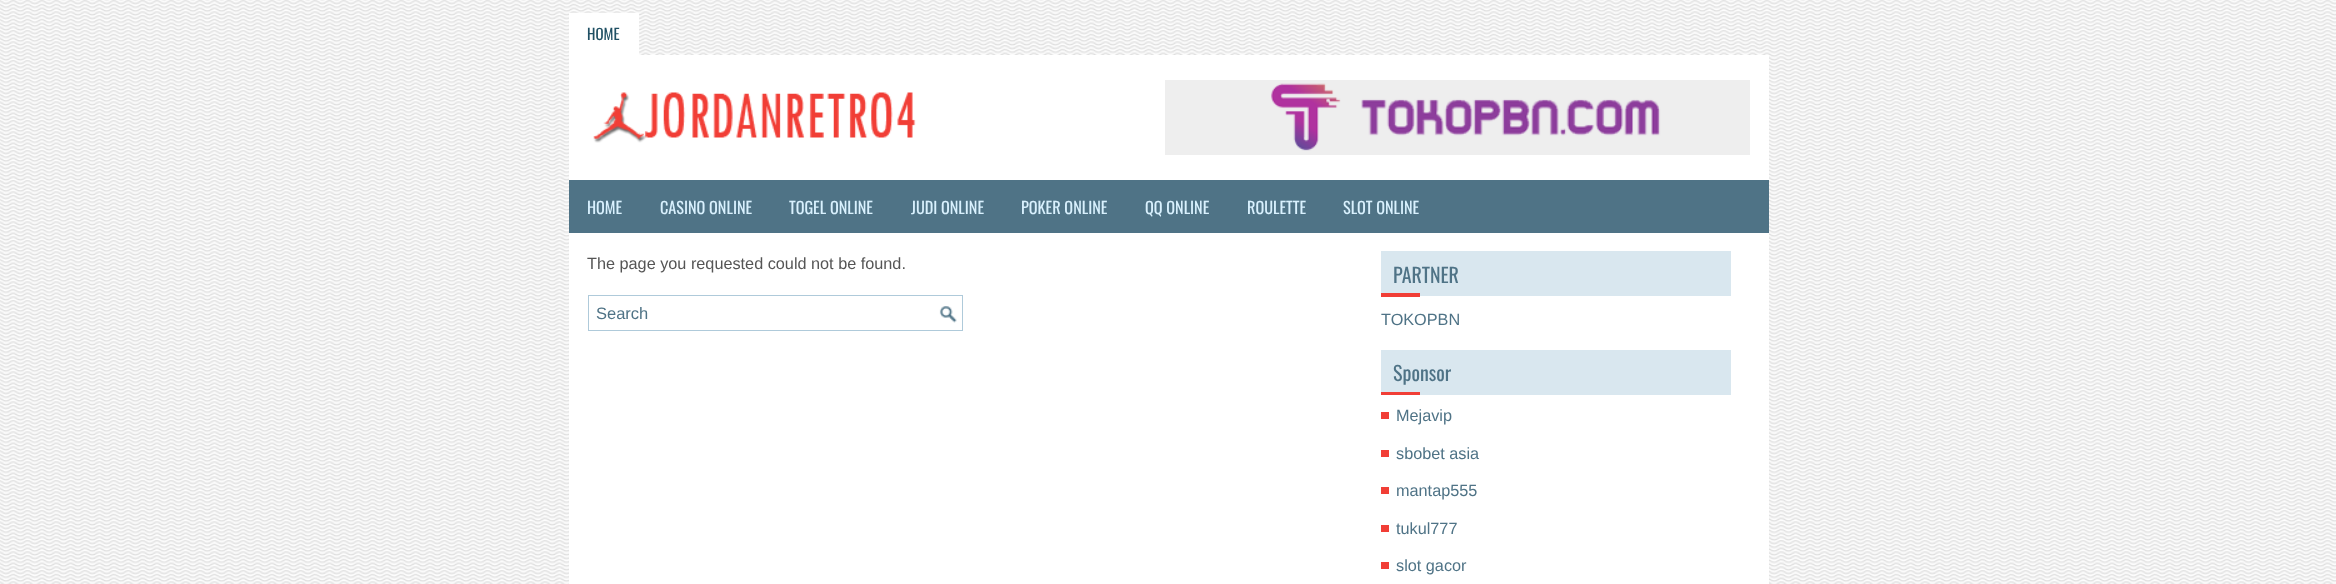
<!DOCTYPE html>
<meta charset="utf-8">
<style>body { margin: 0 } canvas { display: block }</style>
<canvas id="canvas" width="2336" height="584"></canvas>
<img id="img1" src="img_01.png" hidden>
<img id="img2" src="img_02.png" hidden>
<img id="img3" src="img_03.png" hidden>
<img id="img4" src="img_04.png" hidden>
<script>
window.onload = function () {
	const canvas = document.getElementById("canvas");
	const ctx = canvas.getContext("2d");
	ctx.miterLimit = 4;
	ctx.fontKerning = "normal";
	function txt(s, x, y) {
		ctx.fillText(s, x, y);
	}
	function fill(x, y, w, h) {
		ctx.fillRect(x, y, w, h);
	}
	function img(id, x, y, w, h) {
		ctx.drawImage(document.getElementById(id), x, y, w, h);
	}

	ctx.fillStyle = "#FFFFFF";
	fill(0, 0, 2336, 584);
	img("img1", 0, 0, 2336, 584);
	fill(569, 13, 70, 42);
	fill(569, 55, 1200, 125);
	img("img2", 593, 92, 323, 51);
	img("img3", 1165, 80, 585, 75);
	ctx.fillStyle = "#4F7386";
	fill(569, 180, 1200, 53);
	ctx.fillStyle = "#FFFFFF";
	fill(569, 233, 1200, 351);
	img("img4", 939, 306, 18, 17);
	ctx.strokeStyle = "#AFCADA";
	ctx.strokeRect(588.5, 295.5, 374, 35);
	ctx.fillStyle = "#D9E7EF";
	fill(1381, 251, 350, 45);
	ctx.fillStyle = "#F13E36";
	fill(1381, 293, 39, 4);
	ctx.fillStyle = "#D9E7EF";
	fill(1381, 350, 350, 45);
	ctx.fillStyle = "#F13E36";
	fill(1381, 392, 39, 3);
	fill(1381, 412, 8, 7);
	fill(1381, 450, 8, 7);
	fill(1381, 487, 8, 7);
	fill(1381, 525, 8, 7);
	fill(1381, 562, 8, 7);
	ctx.font = "15px Oswald";
	ctx.fillStyle = "#205064";
	txt("HOME", 587, 40);
	ctx.font = "16.25px Oswald";
	ctx.fillStyle = "#D9F1FE";
	txt("HOME", 587, 214);
	txt("CASINO ONLINE", 660, 214);
	txt("TOGEL ONLINE", 789, 214);
	txt("JUDI ONLINE", 911, 214);
	txt("POKER ONLINE", 1021, 214);
	txt("QQ ONLINE", 1145, 214);
	txt("ROULETTE", 1247, 214);
	txt("SLOT ONLINE", 1343, 214);
	ctx.font = "16.25px Liberation Sans";
	ctx.fillStyle = "#555555";
	txt("The page you requested could not be found.", 587, 269);
	ctx.font = "16.5px Liberation Sans";
	ctx.fillStyle = "#4F7386";
	txt("Search", 596, 319);
	ctx.font = "20px Oswald";
	txt("PARTNER", 1393, 283);
	ctx.font = "16.25px Liberation Sans";
	txt("TOKOPBN", 1381, 325);
	ctx.font = "20px Oswald";
	txt("Sponsor", 1393, 381);
	ctx.font = "16.25px Liberation Sans";
	txt("Mejavip", 1396, 421);
	txt("sbobet asia", 1396, 459);
	txt("mantap555", 1396, 496);
	txt("tukul777", 1396, 534);
	txt("slot gacor", 1396, 571);
};
</script>
